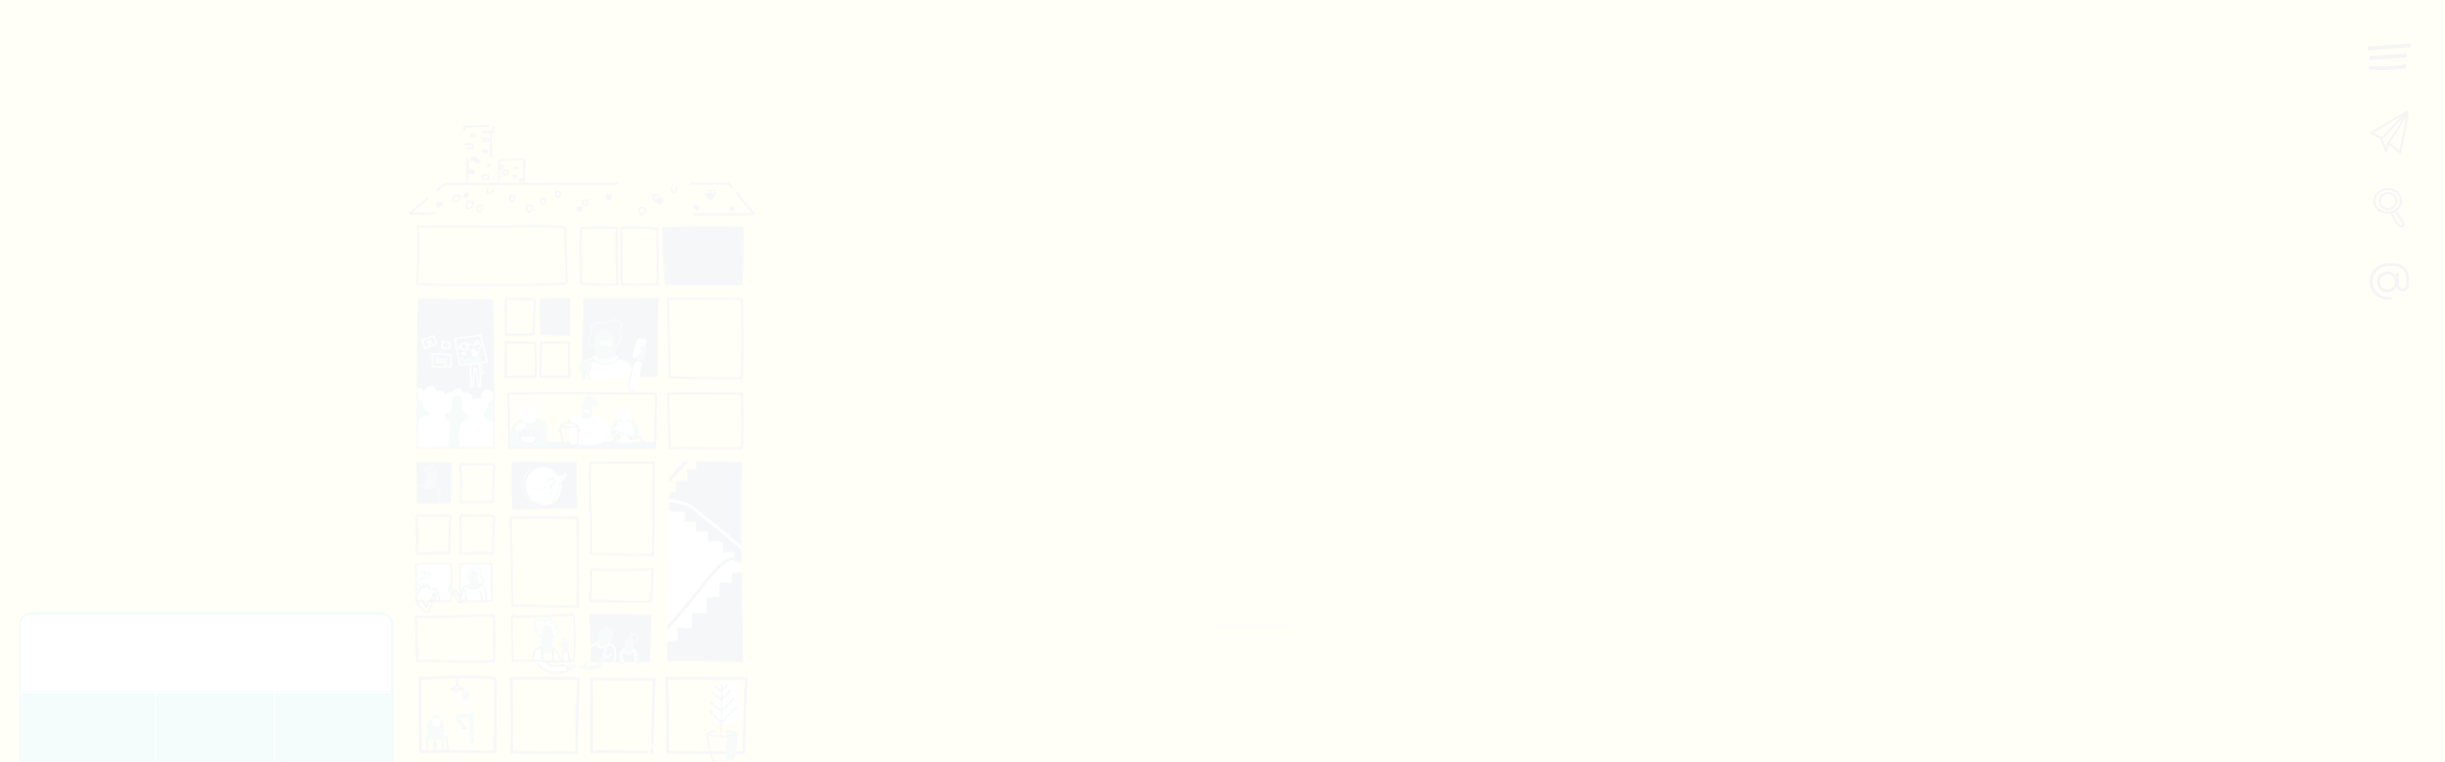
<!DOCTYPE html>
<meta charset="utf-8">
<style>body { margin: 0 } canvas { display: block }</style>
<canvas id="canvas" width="2445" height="762"></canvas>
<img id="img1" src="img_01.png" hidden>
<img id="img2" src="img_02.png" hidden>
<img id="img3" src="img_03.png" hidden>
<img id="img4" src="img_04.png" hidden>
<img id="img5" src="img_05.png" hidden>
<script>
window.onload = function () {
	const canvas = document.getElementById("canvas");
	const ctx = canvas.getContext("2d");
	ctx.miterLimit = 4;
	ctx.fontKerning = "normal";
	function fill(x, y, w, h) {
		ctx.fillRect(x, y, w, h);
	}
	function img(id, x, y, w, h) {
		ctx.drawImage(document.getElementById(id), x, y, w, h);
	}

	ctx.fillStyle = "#FFFEF7";
	fill(0, 0, 2445, 762);
	ctx.fillStyle = "#FFFFFF";
	ctx.beginPath();
	ctx.moveTo(32, 613);
	ctx.lineTo(381, 613);
	ctx.bezierCurveTo(388, 613, 394, 619, 394, 626);
	ctx.lineTo(394, 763);
	ctx.lineTo(19, 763);
	ctx.lineTo(19, 626);
	ctx.bezierCurveTo(19, 619, 25, 613, 32, 613);
	ctx.closePath();
	ctx.fill();
	ctx.fillStyle = "#F5FDFC";
	ctx.beginPath();
	ctx.moveTo(31, 612);
	ctx.lineTo(381, 612);
	ctx.bezierCurveTo(388, 612, 394, 618, 394, 625);
	ctx.lineTo(394, 762);
	ctx.lineTo(19, 762);
	ctx.lineTo(19, 625);
	ctx.bezierCurveTo(19, 618, 24, 612, 31, 612);
	ctx.closePath();
	ctx.moveTo(31, 615);
	ctx.lineTo(381, 615);
	ctx.bezierCurveTo(387, 615, 391, 619, 391, 625);
	ctx.lineTo(391, 762);
	ctx.lineTo(21, 762);
	ctx.lineTo(21, 625);
	ctx.bezierCurveTo(21, 619, 26, 615, 31, 615);
	ctx.closePath();
	ctx.fill("evenodd");
	fill(21, 691, 370, 1);
	fill(21, 693, 134, 69);
	fill(156, 693, 118, 69);
	fill(275, 693, 116, 69);
	img("img1", 409, 125, 347, 637);
	ctx.fillStyle = "#FDFDFD";
	fill(1216, 623, 75, 3);
	img("img2", 2368, 43, 43, 28);
	img("img3", 2370, 110, 39, 44);
	img("img4", 2373, 187, 32, 41);
	img("img5", 2369, 263, 40, 37);
};
</script>
